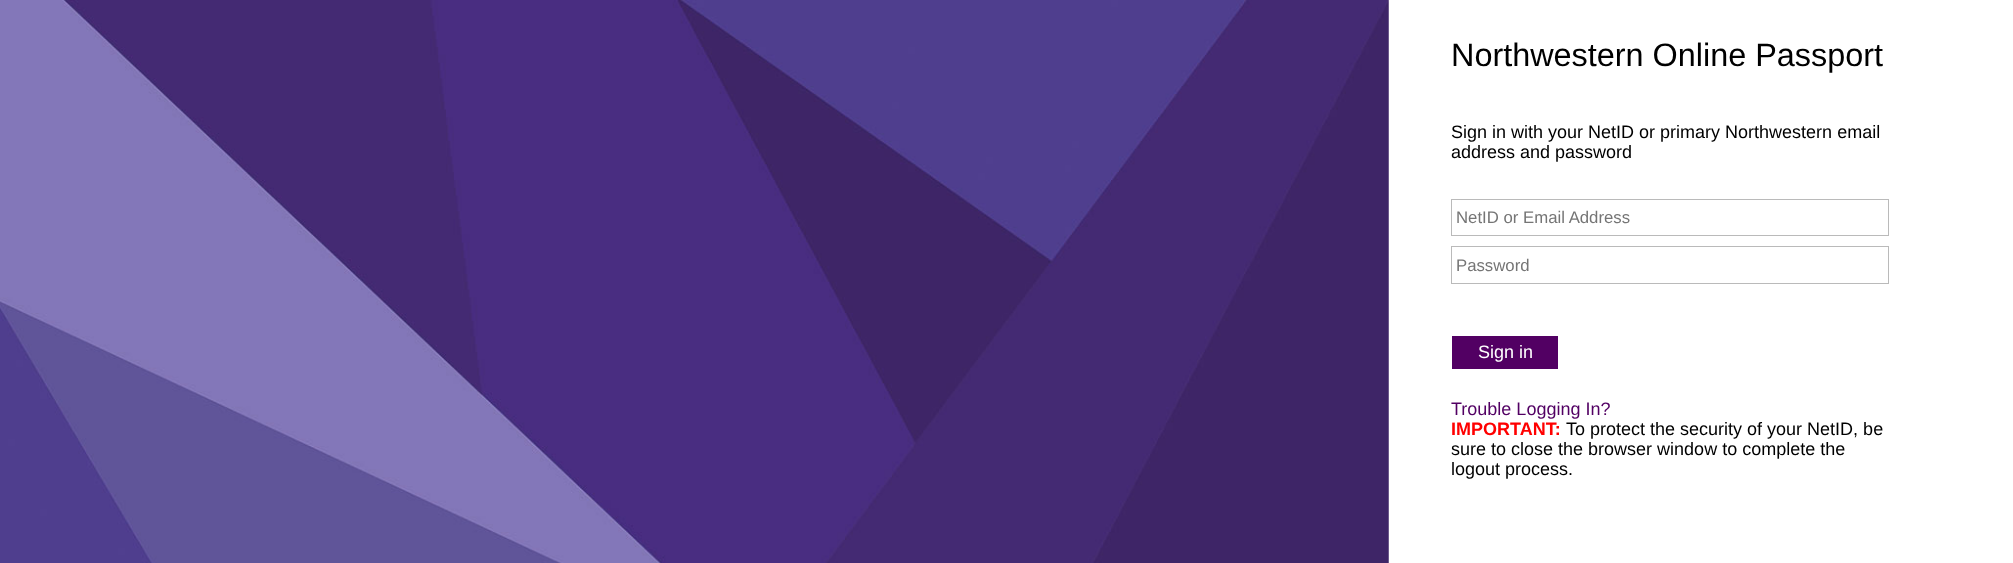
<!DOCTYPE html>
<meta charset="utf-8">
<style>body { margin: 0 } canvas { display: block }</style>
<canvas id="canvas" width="2013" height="563"></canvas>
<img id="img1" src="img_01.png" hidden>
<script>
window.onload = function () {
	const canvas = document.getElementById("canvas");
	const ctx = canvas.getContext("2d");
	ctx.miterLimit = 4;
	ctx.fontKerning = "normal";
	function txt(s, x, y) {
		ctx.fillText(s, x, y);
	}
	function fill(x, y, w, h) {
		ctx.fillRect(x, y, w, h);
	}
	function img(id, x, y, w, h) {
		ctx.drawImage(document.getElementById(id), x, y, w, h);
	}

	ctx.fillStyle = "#FFFFFF";
	fill(0, 0, 2013, 563);
	img("img1", 0, 0, 1389, 563);
	ctx.strokeStyle = "#BABABA";
	ctx.strokeRect(1451.5, 199.5, 437, 36);
	ctx.strokeRect(1451.5, 246.5, 437, 37);
	ctx.fillStyle = "#520063";
	fill(1452, 336, 106, 33);
	ctx.font = "32.4px Liberation Sans";
	ctx.fillStyle = "#000000";
	txt("Northwestern Online Passport", 1451, 66);
	ctx.font = "18px Liberation Sans";
	txt("Sign in with your NetID or primary Northwestern email", 1451, 138);
	txt("address and password", 1451, 158);
	ctx.font = "16.75px Liberation Sans";
	ctx.fillStyle = "#757575";
	txt("NetID or Email Address", 1456, 223);
	txt("Password", 1456, 271);
	ctx.font = "18px Liberation Sans";
	ctx.fillStyle = "#FFFFFF";
	txt("Sign in", 1478, 358);
	ctx.fillStyle = "#520063";
	txt("Trouble Logging In?", 1451, 415);
	ctx.font = "bold 18px Liberation Sans";
	ctx.fillStyle = "#FF0000";
	txt("IMPORTANT:", 1451, 435);
	ctx.font = "18px Liberation Sans";
	ctx.fillStyle = "#000000";
	txt("To protect the security of your NetID, be", 1566, 435);
	txt("sure to close the browser window to complete the", 1451, 455);
	txt("logout process.", 1451, 475);
};
</script>
